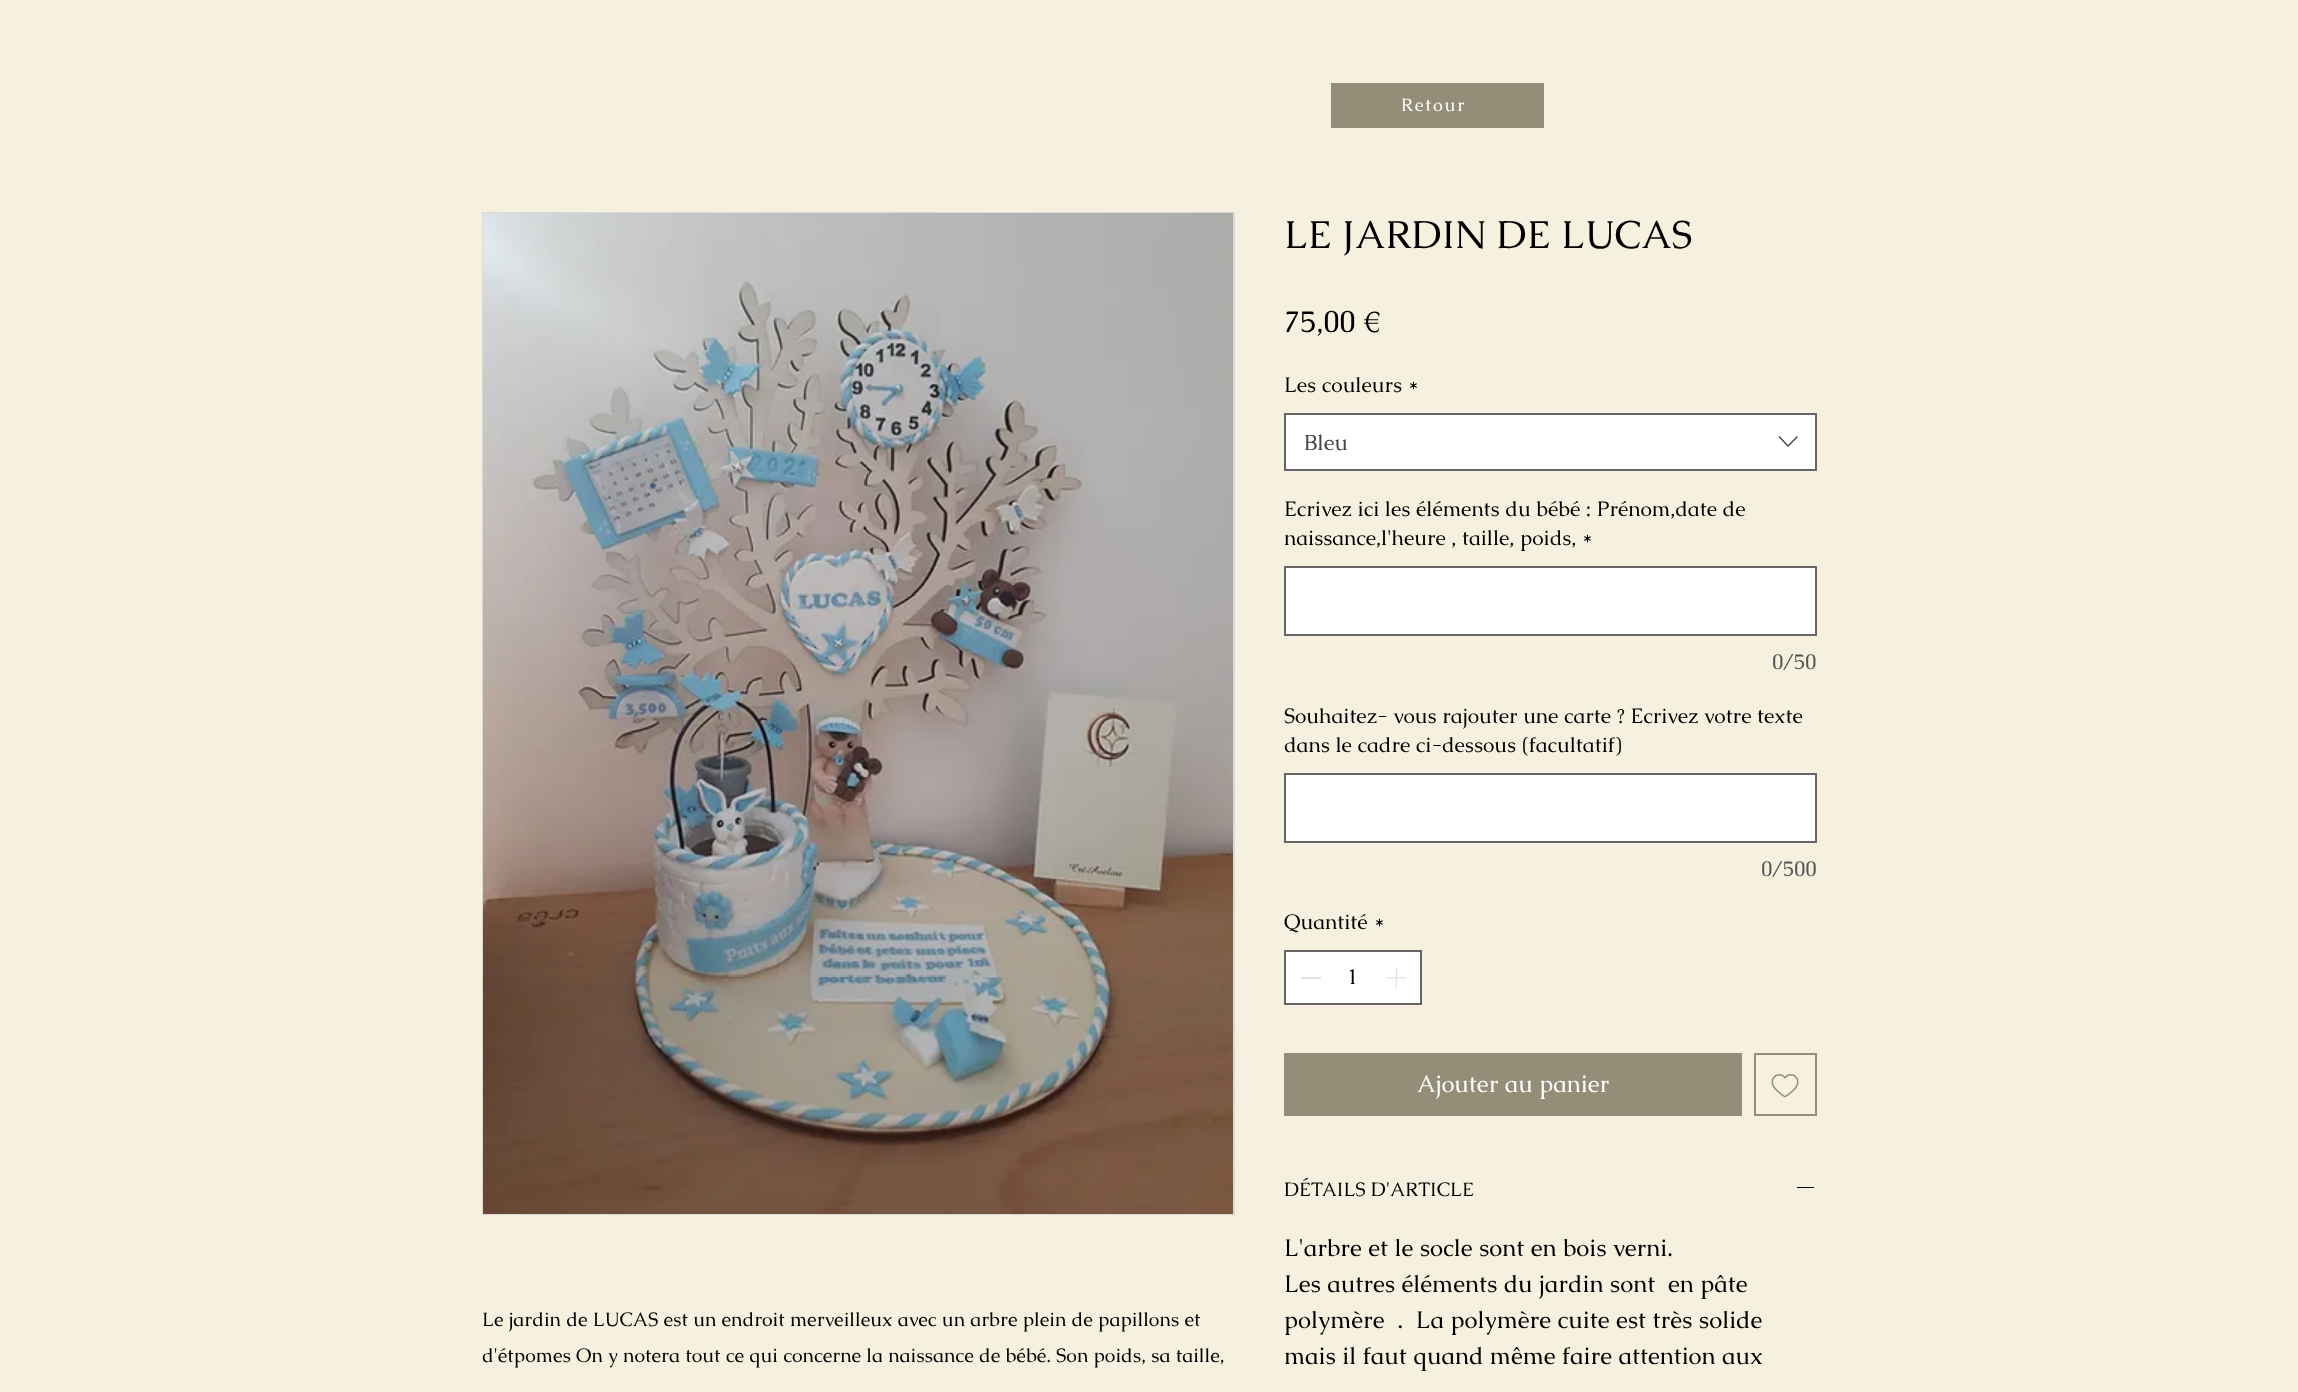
<!DOCTYPE html>
<meta charset="utf-8">
<style>body { margin: 0 } canvas { display: block }</style>
<canvas id="canvas" width="2298" height="1392"></canvas>
<img id="img1" src="img_01.png" hidden>
<img id="img2" src="img_02.png" hidden>
<img id="img3" src="img_03.png" hidden>
<script>
window.onload = function () {
	const canvas = document.getElementById("canvas");
	const ctx = canvas.getContext("2d");
	ctx.miterLimit = 4;
	ctx.fontKerning = "normal";
	function txt(s, x, y) {
		ctx.fillText(s, x, y);
	}
	function fill(x, y, w, h) {
		ctx.fillRect(x, y, w, h);
	}
	function img(id, x, y, w, h) {
		ctx.drawImage(document.getElementById(id), x, y, w, h);
	}

	ctx.fillStyle = "#F6F0DF";
	fill(0, 0, 2298, 1392);
	ctx.fillStyle = "#948D78";
	fill(1331, 83, 213, 45);
	ctx.strokeStyle = "#D9D9D9";
	ctx.lineWidth = 2;
	ctx.strokeRect(483, 213, 751, 1001);
	img("img1", 483, 213, 750, 1001);
	ctx.fillStyle = "#FFFFFF";
	ctx.beginPath();
	ctx.rect(1285, 414, 531, 56);
	ctx.fill();
	ctx.strokeStyle = "#666666";
	ctx.stroke();
	ctx.fillStyle = "#444444";
	ctx.beginPath();
	ctx.moveTo(1797, 436);
	ctx.lineTo(1798, 437);
	ctx.lineTo(1788, 447);
	ctx.lineTo(1778.5, 437);
	ctx.lineTo(1779.5, 436);
	ctx.lineTo(1788, 445);
	ctx.closePath();
	ctx.fill("evenodd");
	ctx.fillStyle = "#FFFFFF";
	ctx.beginPath();
	ctx.rect(1285, 567, 531, 68);
	ctx.fill();
	ctx.stroke();
	ctx.beginPath();
	ctx.rect(1285, 774, 531, 68);
	ctx.fill();
	ctx.stroke();
	ctx.beginPath();
	ctx.rect(1285, 951, 136, 53);
	ctx.fill();
	ctx.stroke();
	ctx.fillStyle = "#E3E3E3";
	fill(1301, 977, 20, 2);
	img("img2", 1386, 968, 21, 20);
	ctx.fillStyle = "#948D78";
	fill(1284, 1053, 458, 63);
	ctx.strokeStyle = "#948D78";
	ctx.strokeRect(1755, 1054, 61, 61);
	img("img3", 1771, 1074, 28, 24);
	ctx.fillStyle = "#000000";
	fill(1797, 1187, 17, 1);
	ctx.letterSpacing = "1.75px";
	ctx.font = "18px Caudex";
	ctx.fillStyle = "#FFFFFF";
	txt("Retour", 1401, 111);
	ctx.letterSpacing = "0px";
	ctx.font = "19.5px Caudex";
	ctx.fillStyle = "#000000";
	txt("Le jardin de LUCAS est un endroit merveilleux avec un arbre plein de papillons et", 482, 1326);
	txt("d'étpomes On y notera tout ce qui concerne la naissance de bébé. Son poids, sa taille,", 482, 1362);
	ctx.font = "39px Caudex";
	txt("LE JARDIN DE LUCAS", 1284, 248);
	ctx.font = "30px Caudex";
	txt("75,00 €", 1284, 332);
	ctx.font = "21px Caudex";
	txt("Les couleurs", 1284, 392);
	txt("*", 1408, 392);
	ctx.font = "22px Caudex";
	ctx.fillStyle = "#444444";
	txt("Bleu", 1304, 450);
	ctx.font = "21px Caudex";
	ctx.fillStyle = "#000000";
	txt("Ecrivez ici les éléments du bébé : Prénom,date de", 1284, 516);
	txt("naissance,l'heure , taille, poids,", 1284, 545);
	txt("*", 1582, 545);
	ctx.fillStyle = "#545454";
	txt("0/50", 1772, 669);
	ctx.fillStyle = "#000000";
	txt("Souhaitez- vous rajouter une carte ? Ecrivez votre texte", 1284, 723);
	txt("dans le cadre ci-dessous (facultatif)", 1284, 752);
	ctx.fillStyle = "#545454";
	txt("0/500", 1761, 876);
	ctx.fillStyle = "#000000";
	txt("Quantité", 1284, 929);
	txt("*", 1374, 929);
	txt("1", 1347, 984);
	ctx.font = "24px Caudex";
	ctx.fillStyle = "#FFFFFF";
	txt("Ajouter au panier", 1417, 1092);
	ctx.font = "19.5px Caudex";
	ctx.fillStyle = "#000000";
	txt("DÉTAILS D'ARTICLE", 1284, 1196);
	ctx.font = "24px Caudex";
	txt("L'arbre et le socle sont en bois verni.", 1284, 1256);
	txt("Les autres éléments du jardin sont  en pâte", 1284, 1292);
	txt("polymère  .  La polymère cuite est très solide", 1284, 1328);
	txt("mais il faut quand même faire attention aux", 1284, 1364);
};
</script>
